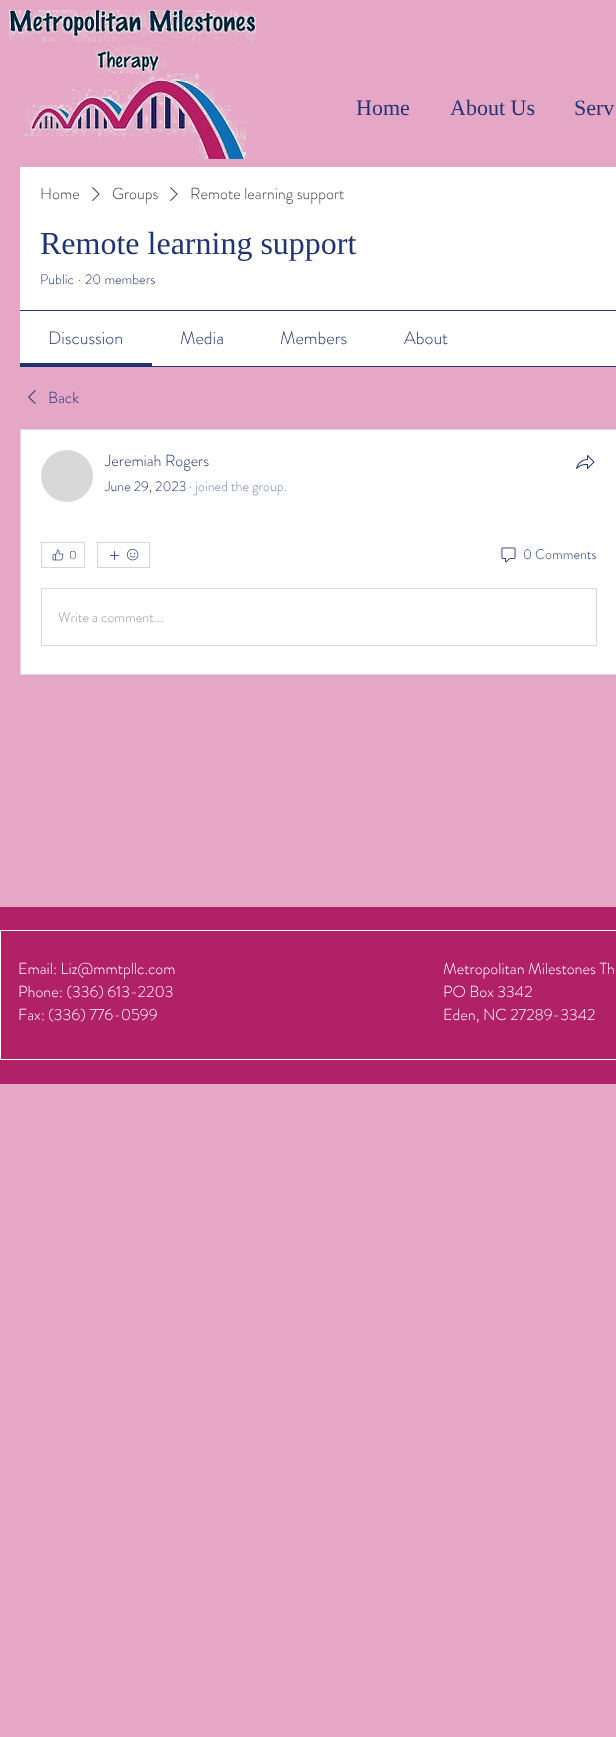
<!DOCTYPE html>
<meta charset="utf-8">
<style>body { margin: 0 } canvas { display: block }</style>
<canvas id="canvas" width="616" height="1737"></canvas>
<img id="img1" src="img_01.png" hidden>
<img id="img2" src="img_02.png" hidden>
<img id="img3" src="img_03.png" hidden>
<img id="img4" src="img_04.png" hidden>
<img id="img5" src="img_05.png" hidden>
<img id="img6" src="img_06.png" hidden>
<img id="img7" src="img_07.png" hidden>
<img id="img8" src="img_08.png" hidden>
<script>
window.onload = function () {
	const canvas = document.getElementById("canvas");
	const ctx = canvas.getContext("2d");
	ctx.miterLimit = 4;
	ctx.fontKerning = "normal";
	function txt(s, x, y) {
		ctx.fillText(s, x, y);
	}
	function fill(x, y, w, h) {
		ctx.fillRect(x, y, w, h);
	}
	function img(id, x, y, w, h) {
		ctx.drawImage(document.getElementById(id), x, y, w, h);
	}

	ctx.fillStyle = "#E5A7C5";
	fill(0, 0, 616, 1737);
	img("img1", 9, 10, 247, 149);
	ctx.fillStyle = "#FFFFFF";
	fill(20, 167, 596, 199);
	img("img2", 92, 187, 8, 14);
	img("img2", 170, 187, 8, 14);
	ctx.fillStyle = "#213472";
	fill(20, 310, 596, 1);
	fill(20, 366, 596, 1);
	fill(20, 363, 132, 3);
	img("img3", 28, 390, 8, 14);
	ctx.fillStyle = "#FFFFFF";
	ctx.beginPath();
	ctx.rect(20.5, 429.5, 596, 245);
	ctx.fill();
	ctx.strokeStyle = "#D9D9D9";
	ctx.stroke();
	ctx.fillStyle = "#D8D8D8";
	ctx.beginPath();
	ctx.arc(67, 476, 26, 0, Math.PI * 2);
	ctx.fill();
	img("img4", 576, 455, 19, 14);
	ctx.strokeStyle = "#D3D6E3";
	ctx.strokeRect(41.5, 542.5, 43, 25);
	img("img5", 52, 549, 12, 12);
	ctx.strokeRect(97.5, 542.5, 52, 25);
	img("img6", 110, 551, 9, 9);
	img("img7", 127, 549, 12, 12);
	img("img8", 501, 547, 15, 16);
	ctx.strokeStyle = "#D9D9D9";
	ctx.strokeRect(41.5, 588.5, 555, 57);
	ctx.fillStyle = "#B12167";
	fill(0, 907, 616, 177);
	ctx.fillStyle = "#FFFFFF";
	fill(0, 930, 616, 130);
	ctx.fillStyle = "#B12167";
	fill(1, 931, 615, 128);
	ctx.font = "22px Liberation Serif";
	ctx.fillStyle = "#213472";
	txt("Home", 356, 115);
	txt("About Us", 450, 115);
	txt("Serv", 574, 115);
	ctx.font = "300 16px 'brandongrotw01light'";
	ctx.fillStyle = "#414141";
	txt("Home", 40, 199);
	txt("Groups", 112, 199);
	txt("Remote learning support", 190, 199);
	ctx.font = "32px Liberation Serif";
	ctx.fillStyle = "#213472";
	txt("Remote learning support", 40, 254);
	ctx.font = "300 14px 'brandongrotw01light'";
	txt("Public", 40, 284);
	txt("·", 78, 284);
	txt("20 members", 85, 284);
	ctx.font = "300 18px 'brandongrotw01light'";
	txt("Discussion", 48, 344);
	txt("Media", 180, 344);
	txt("Members", 280, 344);
	txt("About", 404, 344);
	ctx.font = "300 16px 'brandongrotw01light'";
	txt("Back", 48, 403);
	txt("Jeremiah Rogers", 105, 466);
	ctx.font = "300 14px 'brandongrotw01light'";
	txt("June 29, 2023", 105, 491);
	ctx.fillStyle = "#7A85AA";
	txt("· joined the group.", 189, 491);
	ctx.font = "300 12px 'brandongrotw01light'";
	ctx.fillStyle = "#213472";
	txt("0", 69, 559);
	ctx.font = "300 14px 'brandongrotw01light'";
	txt("0 Comments", 523, 559);
	ctx.fillStyle = "#999997";
	txt("Write a comment...", 58, 622);
	ctx.font = "300 16px 'brandongrotw01light'";
	ctx.fillStyle = "#FFFFFF";
	txt("Email: Liz@mmtpllc.com", 18, 974);
	txt("Phone: (336) 613-2203", 18, 997);
	txt("Fax: (336) 776-0599", 18, 1020);
	txt("Metropolitan Milestones Th", 443, 974);
	txt("PO Box 3342", 443, 997);
	txt("Eden, NC 27289-3342", 443, 1020);
};
</script>
